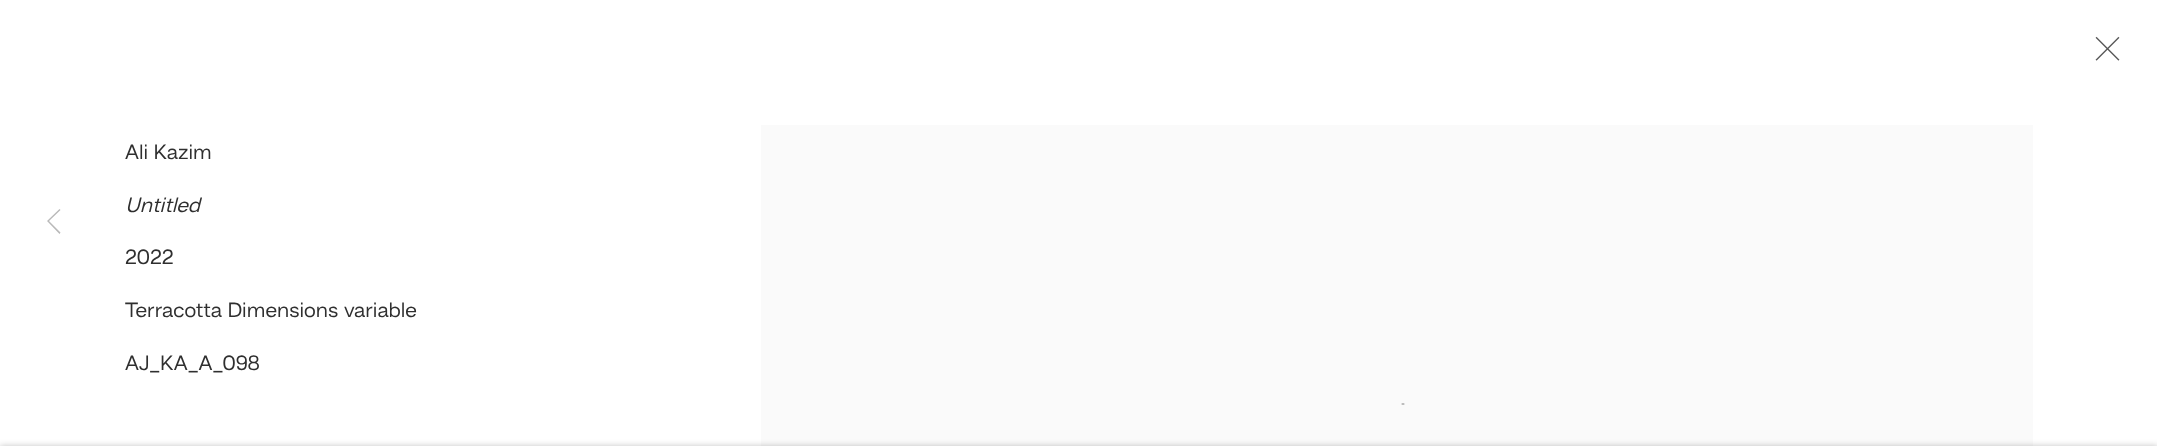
<!DOCTYPE html>
<meta charset="utf-8">
<style>body { margin: 0 } canvas { display: block }</style>
<canvas id="canvas" width="2157" height="446"></canvas>
<img id="img1" src="img_01.png" hidden>
<script>
window.onload = function () {
	const canvas = document.getElementById("canvas");
	const ctx = canvas.getContext("2d");
	ctx.miterLimit = 4;
	ctx.fontKerning = "normal";
	function txt(s, x, y) {
		ctx.fillText(s, x, y);
	}
	function fill(x, y, w, h) {
		ctx.fillRect(x, y, w, h);
	}
	function img(id, x, y, w, h) {
		ctx.drawImage(document.getElementById(id), x, y, w, h);
	}

	ctx.fillStyle = "#FFFFFF";
	fill(0, 0, 2157, 446);
	img("img1", 2095, 36, 25, 25);
	ctx.fillStyle = "#B9B9B9";
	ctx.beginPath();
	ctx.moveTo(48, 222);
	ctx.lineTo(59.5, 234);
	ctx.lineTo(60.5, 232.5);
	ctx.lineTo(49, 221);
	ctx.lineTo(60.5, 210);
	ctx.lineTo(59.5, 209);
	ctx.lineTo(47, 221);
	ctx.closePath();
	ctx.fill();
	ctx.fillStyle = "#FAFAFA";
	fill(761, 125, 1272, 321);
	ctx.beginPath();
	ctx.moveTo(1402.5, 404);
	ctx.lineTo(1403.5, 404);
	ctx.strokeStyle = "#BBBBBB";
	ctx.lineWidth = 2.2;
	ctx.lineCap = "round";
	ctx.stroke();
	ctx.fillStyle = "rgba(0, 0, 0, 0.23)";
	ctx.filter = "blur(3px)";
	ctx.beginPath();
	ctx.rect(0, 446, 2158, 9);
	ctx.fill();
	ctx.filter = "none";
	ctx.font = "21.25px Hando";
	ctx.fillStyle = "#2F2F2F";
	txt("Ali Kazim", 125, 159);
	ctx.font = "italic 21.25px Hando";
	txt("Untitled", 125, 212);
	ctx.font = "21.25px Hando";
	txt("2022", 125, 264);
	txt("Terracotta Dimensions variable", 125, 317);
	txt("AJ_KA_A_098", 125, 370);
};
</script>
